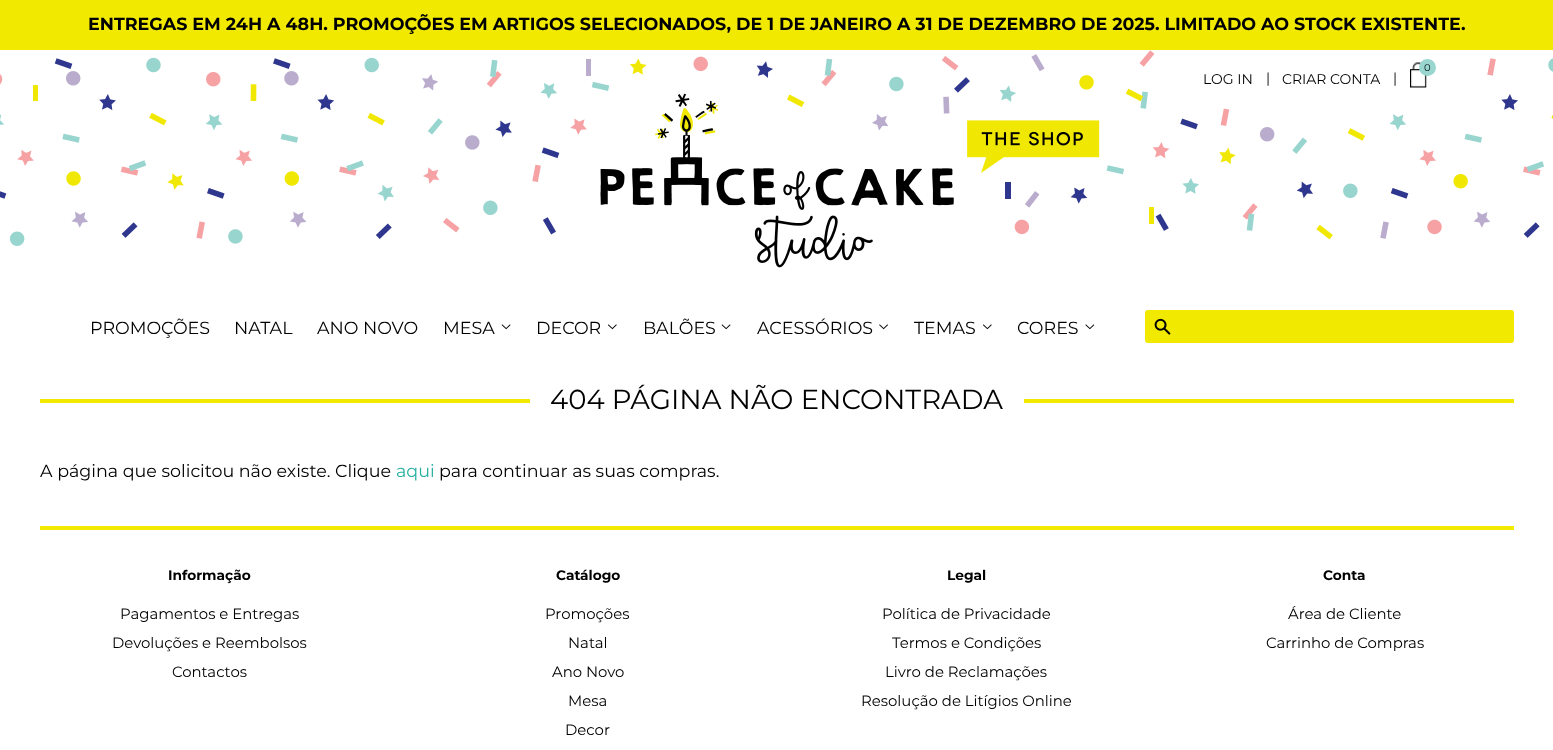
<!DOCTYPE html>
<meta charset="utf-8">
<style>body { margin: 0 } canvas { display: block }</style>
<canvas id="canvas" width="1553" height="750"></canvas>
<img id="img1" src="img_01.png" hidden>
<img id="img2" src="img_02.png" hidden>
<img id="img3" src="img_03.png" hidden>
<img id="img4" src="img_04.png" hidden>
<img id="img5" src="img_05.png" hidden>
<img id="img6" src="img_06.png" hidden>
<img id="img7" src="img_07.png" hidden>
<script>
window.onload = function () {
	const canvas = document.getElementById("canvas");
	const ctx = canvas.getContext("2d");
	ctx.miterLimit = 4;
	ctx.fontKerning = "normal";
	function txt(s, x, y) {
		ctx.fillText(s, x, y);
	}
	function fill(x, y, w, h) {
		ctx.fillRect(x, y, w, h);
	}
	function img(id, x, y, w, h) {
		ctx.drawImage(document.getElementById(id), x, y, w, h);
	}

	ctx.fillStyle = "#FFFFFF";
	fill(0, 0, 1553, 750);
	ctx.fillStyle = "#F2E900";
	fill(0, 0, 1553, 50);
	img("img1", 0, 50, 1553, 218);
	img("img2", 1410, 62, 17, 26);
	ctx.fillStyle = "#99D6D0";
	ctx.beginPath();
	ctx.arc(1427.5, 67.5, 8.5, 0, Math.PI * 2);
	ctx.fill();
	img("img3", 501, 324, 10, 6);
	img("img4", 608, 324, 9, 6);
	img("img3", 721, 324, 10, 6);
	img("img5", 879, 324, 9, 6);
	img("img4", 983, 324, 9, 6);
	img("img6", 1085, 324, 10, 6);
	ctx.fillStyle = "#F2E900";
	ctx.beginPath();
	ctx.roundRect(1145.5, 310.5, 368, 32, 2);
	ctx.fill();
	ctx.strokeStyle = "#F2E900";
	ctx.stroke();
	img("img7", 1154, 318, 17, 17);
	fill(40, 399, 490, 4);
	fill(1024, 399, 490, 4);
	fill(40, 526, 1474, 4);
	ctx.font = "bold 17.5px Montserrat";
	ctx.fillStyle = "#000000";
	txt("ENTREGAS EM 24H A 48H. PROMOÇÕES EM ARTIGOS SELECIONADOS, DE 1 DE JANEIRO A 31 DE DEZEMBRO DE 2025. LIMITADO AO STOCK EXISTENTE.", 88, 30);
	ctx.font = "10px Montserrat";
	ctx.fillStyle = "#0A1918";
	txt("0", 1424, 71);
	ctx.font = "14px Montserrat";
	ctx.fillStyle = "#000000";
	txt("LOG IN", 1203, 84);
	txt("|", 1266, 83);
	txt("CRIAR CONTA", 1282, 84);
	txt("|", 1393, 83);
	ctx.font = "17.5px Montserrat";
	txt("PROMOÇÕES", 90, 334);
	txt("NATAL", 234, 334);
	txt("ANO NOVO", 317, 334);
	txt("MESA", 443, 334);
	txt("DECOR", 536, 334);
	txt("BALÕES", 643, 334);
	txt("ACESSÓRIOS", 757, 334);
	txt("TEMAS", 914, 334);
	txt("CORES", 1017, 334);
	ctx.font = "27.5px Montserrat";
	txt("404 PÁGINA NÃO ENCONTRADA", 550, 409);
	ctx.font = "17.5px Montserrat";
	txt("A página que solicitou não existe. Clique", 40, 477);
	ctx.fillStyle = "#27B0A2";
	txt("aqui", 396, 477);
	ctx.fillStyle = "#000000";
	txt("para continuar as suas compras.", 439, 477);
	ctx.font = "bold 13.75px Montserrat";
	txt("Informação", 168, 580);
	ctx.font = "14.9px Montserrat";
	txt("Pagamentos e Entregas", 120, 619);
	txt("Devoluções e Reembolsos", 112, 648);
	txt("Contactos", 172, 677);
	ctx.font = "bold 13.75px Montserrat";
	txt("Catálogo", 556, 580);
	ctx.font = "14.9px Montserrat";
	txt("Promoções", 545, 619);
	txt("Natal", 568, 648);
	txt("Ano Novo", 552, 677);
	txt("Mesa", 568, 706);
	txt("Decor", 565, 735);
	ctx.font = "bold 13.75px Montserrat";
	txt("Legal", 947, 580);
	ctx.font = "14.9px Montserrat";
	txt("Política de Privacidade", 882, 619);
	txt("Termos e Condições", 892, 648);
	txt("Livro de Reclamações", 885, 677);
	txt("Resolução de Litígios Online", 861, 706);
	ctx.font = "bold 13.75px Montserrat";
	txt("Conta", 1323, 580);
	ctx.font = "14.9px Montserrat";
	txt("Área de Cliente", 1288, 619);
	txt("Carrinho de Compras", 1266, 648);
};
</script>
